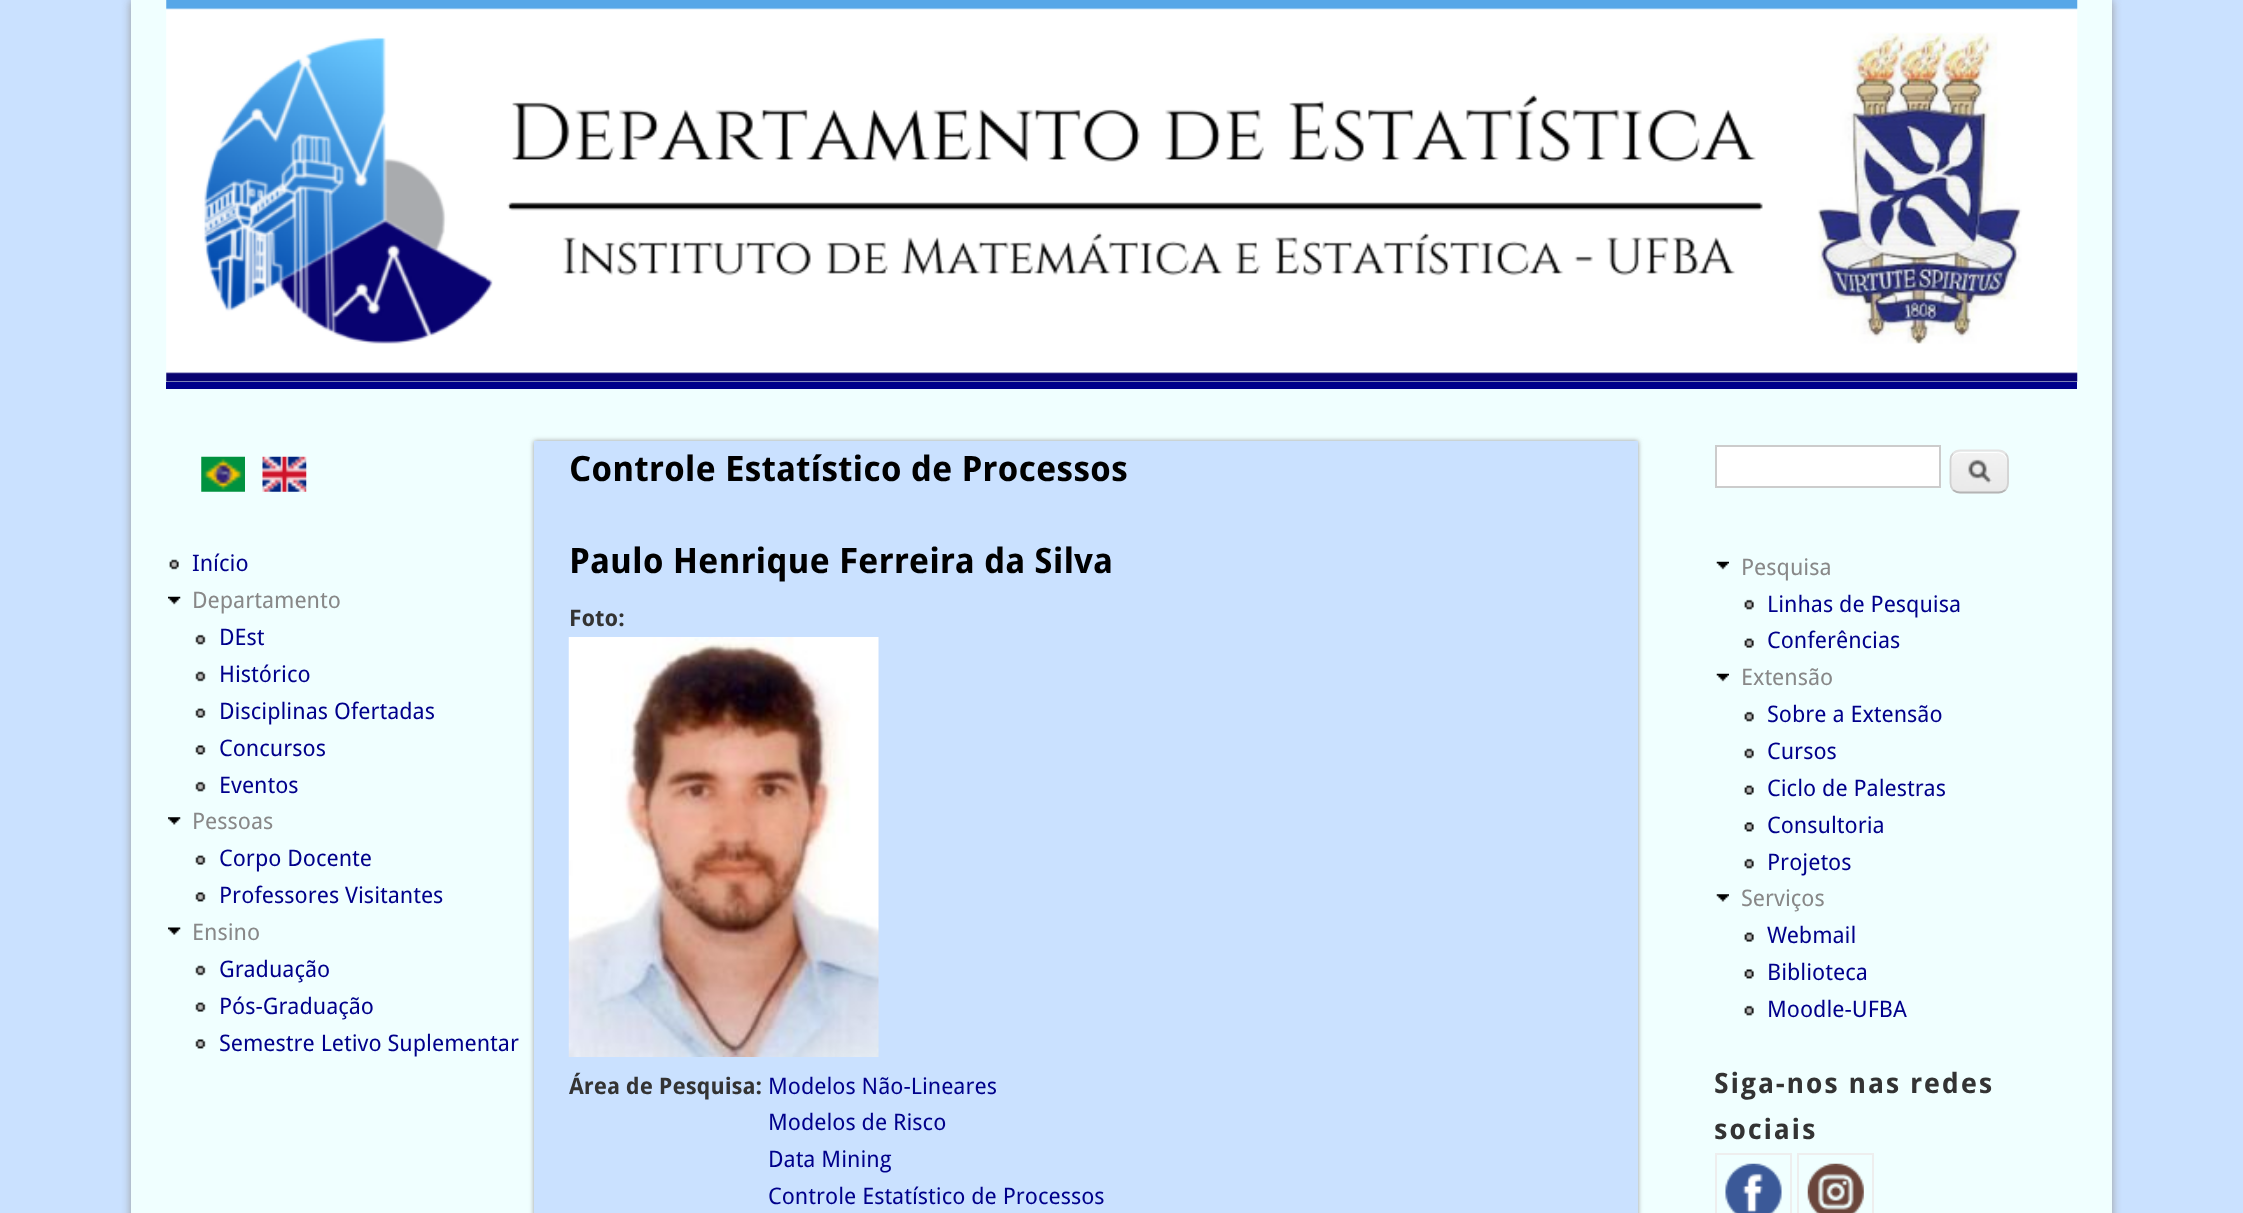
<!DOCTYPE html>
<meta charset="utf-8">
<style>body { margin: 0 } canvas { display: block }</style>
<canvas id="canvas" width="2243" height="1213"></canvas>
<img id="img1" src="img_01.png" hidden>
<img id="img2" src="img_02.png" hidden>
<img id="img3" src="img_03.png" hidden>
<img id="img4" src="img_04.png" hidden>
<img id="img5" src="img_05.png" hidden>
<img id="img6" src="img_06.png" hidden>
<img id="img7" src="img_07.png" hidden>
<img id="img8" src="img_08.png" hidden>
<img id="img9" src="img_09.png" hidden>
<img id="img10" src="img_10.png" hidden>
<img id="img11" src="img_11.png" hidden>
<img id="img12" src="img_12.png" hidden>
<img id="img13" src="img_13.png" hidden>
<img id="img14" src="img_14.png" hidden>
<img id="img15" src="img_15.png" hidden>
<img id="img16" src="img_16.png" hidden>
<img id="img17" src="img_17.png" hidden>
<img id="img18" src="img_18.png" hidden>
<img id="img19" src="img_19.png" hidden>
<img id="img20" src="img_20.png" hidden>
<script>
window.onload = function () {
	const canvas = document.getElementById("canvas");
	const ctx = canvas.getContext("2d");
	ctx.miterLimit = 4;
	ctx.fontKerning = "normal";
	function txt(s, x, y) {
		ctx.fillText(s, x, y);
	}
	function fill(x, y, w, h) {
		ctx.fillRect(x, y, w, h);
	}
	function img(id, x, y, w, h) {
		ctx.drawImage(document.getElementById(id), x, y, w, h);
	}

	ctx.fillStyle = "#CAE1FF";
	fill(0, 0, 2243, 1213);
	ctx.fillStyle = "#999999";
	ctx.filter = "blur(5px)";
	ctx.beginPath();
	ctx.rect(131, 0, 1981, 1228);
	ctx.fill();
	ctx.filter = "none";
	ctx.fillStyle = "#F0FFFF";
	fill(131, 0, 1981, 1213);
	img("img1", 166, 0, 1912, 382);
	ctx.fillStyle = "#00008B";
	fill(166, 382, 1911, 7);
	img("img2", 201, 456, 44, 36);
	img("img3", 262, 456, 45, 36);
	img("img4", 169, 559, 10, 11);
	img("img5", 168, 596, 13, 9);
	img("img6", 195, 634, 11, 11);
	img("img7", 195, 671, 11, 11);
	img("img8", 195, 708, 11, 10);
	img("img9", 195, 745, 11, 10);
	img("img6", 195, 781, 11, 11);
	img("img10", 168, 817, 13, 8);
	img("img8", 195, 855, 11, 10);
	img("img9", 195, 892, 11, 10);
	img("img11", 168, 927, 13, 8);
	img("img7", 195, 965, 11, 11);
	img("img8", 195, 1002, 11, 10);
	img("img9", 195, 1039, 11, 10);
	ctx.fillStyle = "#999999";
	ctx.filter = "blur(2.5px)";
	ctx.beginPath();
	ctx.rect(534, 441, 1104, 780);
	ctx.fill();
	ctx.filter = "none";
	ctx.fillStyle = "#CAE1FF";
	fill(534, 441, 1104, 772);
	img("img12", 568, 637, 311, 420);
	ctx.fillStyle = "#FFFFFF";
	ctx.beginPath();
	ctx.rect(1716, 446, 224, 41);
	ctx.fill();
	ctx.strokeStyle = "#CCCCCC";
	ctx.lineWidth = 2;
	ctx.stroke();
	img("img13", 1949, 451, 60, 43);
	ctx.beginPath();
	ctx.moveTo(1960, 453);
	ctx.lineTo(1998, 453);
	ctx.bezierCurveTo(2003, 453, 2007, 457, 2007, 462);
	ctx.bezierCurveTo(2007, 452, 2000, 452, 1992, 452);
	ctx.lineTo(1966, 452);
	ctx.bezierCurveTo(1958, 452, 1951, 452, 1951, 462);
	ctx.bezierCurveTo(1951, 457, 1955, 453, 1960, 453);
	ctx.closePath();
	ctx.fill();
	ctx.beginPath();
	ctx.moveTo(1953, 453.5);
	ctx.bezierCurveTo(1955, 451.5, 1957.5, 450.5, 1960, 450.5);
	ctx.lineTo(1998.5, 450.5);
	ctx.bezierCurveTo(2001, 450.5, 2003.5, 451.5, 2005.5, 453.5);
	ctx.strokeStyle = "#E4E4E4";
	ctx.lineWidth = 1.8;
	ctx.stroke();
	ctx.beginPath();
	ctx.moveTo(2005.5, 453.5);
	ctx.bezierCurveTo(2007, 455, 2008, 457.5, 2008, 460);
	ctx.lineTo(2008, 483);
	ctx.bezierCurveTo(2008, 485.5, 2007, 488, 2005.5, 490);
	ctx.strokeStyle = "#D2D2D2";
	ctx.stroke();
	ctx.beginPath();
	ctx.moveTo(2005.5, 490);
	ctx.bezierCurveTo(2003.5, 491.5, 2001, 492.5, 1998.5, 492.5);
	ctx.lineTo(1960, 492.5);
	ctx.bezierCurveTo(1957.5, 492.5, 1955, 491.5, 1953, 490);
	ctx.strokeStyle = "#B4B4B4";
	ctx.stroke();
	ctx.beginPath();
	ctx.moveTo(1953, 490);
	ctx.bezierCurveTo(1951.5, 488, 1950.5, 485.5, 1950.5, 483);
	ctx.lineTo(1950.5, 460);
	ctx.bezierCurveTo(1950.5, 457.5, 1951.5, 455, 1953, 453.5);
	ctx.strokeStyle = "#D2D2D2";
	ctx.stroke();
	img("img14", 1716, 561, 13, 9);
	img("img15", 1744, 599, 10, 11);
	img("img16", 1744, 638, 10, 10);
	img("img14", 1716, 673, 13, 9);
	img("img15", 1744, 711, 10, 11);
	img("img4", 1744, 748, 10, 11);
	img("img16", 1744, 785, 10, 10);
	img("img17", 1744, 822, 10, 10);
	img("img15", 1744, 858, 10, 11);
	img("img18", 1716, 894, 13, 8);
	img("img16", 1744, 932, 10, 10);
	img("img17", 1744, 969, 10, 10);
	img("img15", 1744, 1005, 10, 11);
	ctx.strokeStyle = "#EEEEEE";
	ctx.lineWidth = 2;
	ctx.strokeRect(1716, 1154, 75, 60);
	ctx.strokeRect(1798, 1154, 75, 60);
	img("img19", 1725, 1163, 57, 50);
	img("img20", 1807, 1163, 57, 50);
	ctx.font = "22.75px Droid Sans";
	ctx.fillStyle = "#00008B";
	txt("Início", 192, 571);
	ctx.fillStyle = "#888888";
	txt("Departamento", 192, 608);
	ctx.fillStyle = "#00008B";
	txt("DEst", 219, 645);
	txt("Histórico", 219, 682);
	txt("Disciplinas Ofertadas", 219, 719);
	txt("Concursos", 219, 756);
	txt("Eventos", 219, 793);
	ctx.fillStyle = "#888888";
	txt("Pessoas", 192, 829);
	ctx.fillStyle = "#00008B";
	txt("Corpo Docente", 219, 866);
	txt("Professores Visitantes", 219, 903);
	ctx.fillStyle = "#888888";
	txt("Ensino", 192, 940);
	ctx.fillStyle = "#00008B";
	txt("Graduação", 219, 977);
	txt("Pós-Graduação", 219, 1014);
	txt("Semestre Letivo Suplementar", 219, 1051);
	ctx.font = "bold 35px Droid Sans";
	ctx.fillStyle = "#000000";
	txt("Controle Estatístico de Processos", 569, 481);
	txt("Paulo Henrique Ferreira da Silva", 569, 573);
	ctx.font = "bold 22.75px Droid Sans";
	ctx.fillStyle = "#333333";
	txt("Foto:", 569, 626);
	txt("Área de Pesquisa:", 569, 1094);
	ctx.font = "22.75px Droid Sans";
	ctx.fillStyle = "#00008B";
	txt("Modelos Não-Lineares", 768, 1094);
	txt("Modelos de Risco", 768, 1130);
	txt("Data Mining", 768, 1167);
	txt("Controle Estatístico de Processos", 768, 1204);
	ctx.fillStyle = "#888888";
	txt("Pesquisa", 1741, 575);
	ctx.fillStyle = "#00008B";
	txt("Linhas de Pesquisa", 1767, 612);
	txt("Conferências", 1767, 648);
	ctx.fillStyle = "#888888";
	txt("Extensão", 1741, 685);
	ctx.fillStyle = "#00008B";
	txt("Sobre a Extensão", 1767, 722);
	txt("Cursos", 1767, 759);
	txt("Ciclo de Palestras", 1767, 796);
	txt("Consultoria", 1767, 833);
	txt("Projetos", 1767, 870);
	ctx.fillStyle = "#888888";
	txt("Serviços", 1741, 906);
	ctx.fillStyle = "#00008B";
	txt("Webmail", 1767, 943);
	txt("Biblioteca", 1767, 980);
	txt("Moodle-UFBA", 1767, 1017);
	ctx.letterSpacing = "1.75px";
	ctx.font = "bold 28px Droid Sans";
	ctx.fillStyle = "#333333";
	txt("Siga-nos nas redes", 1714, 1093);
	txt("sociais", 1714, 1139);
};
</script>
